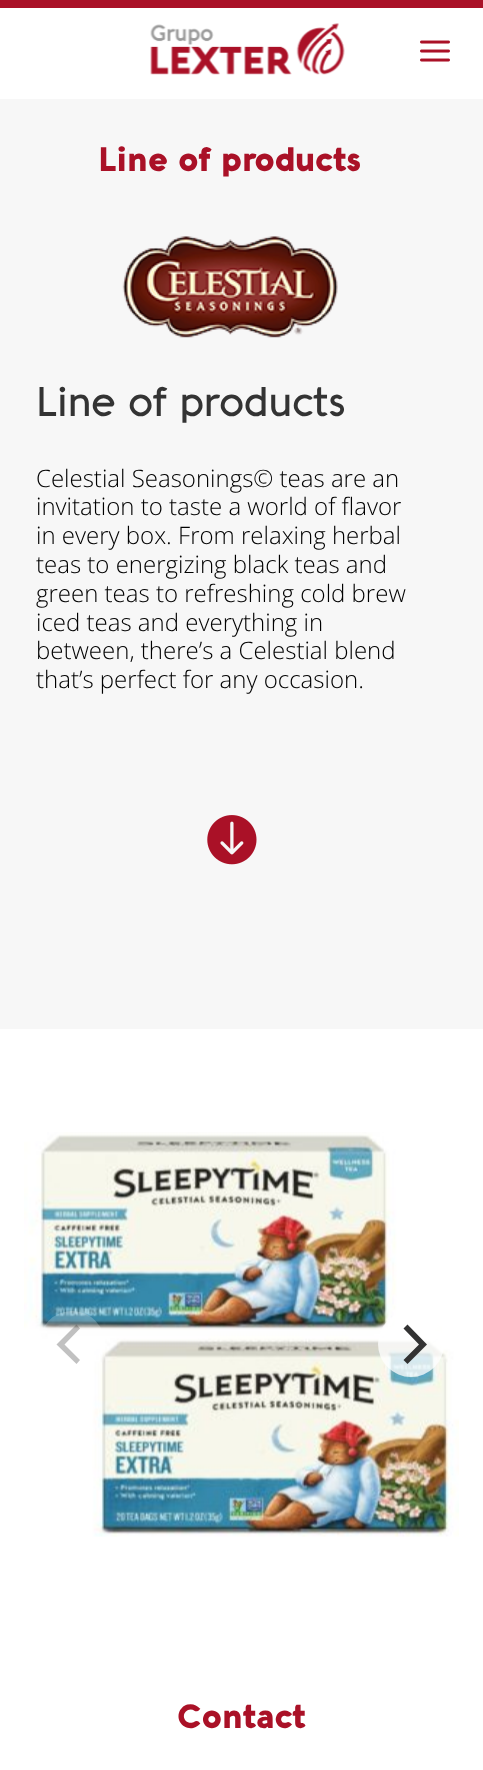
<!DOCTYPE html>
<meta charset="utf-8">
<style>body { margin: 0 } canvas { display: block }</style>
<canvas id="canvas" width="483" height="1770"></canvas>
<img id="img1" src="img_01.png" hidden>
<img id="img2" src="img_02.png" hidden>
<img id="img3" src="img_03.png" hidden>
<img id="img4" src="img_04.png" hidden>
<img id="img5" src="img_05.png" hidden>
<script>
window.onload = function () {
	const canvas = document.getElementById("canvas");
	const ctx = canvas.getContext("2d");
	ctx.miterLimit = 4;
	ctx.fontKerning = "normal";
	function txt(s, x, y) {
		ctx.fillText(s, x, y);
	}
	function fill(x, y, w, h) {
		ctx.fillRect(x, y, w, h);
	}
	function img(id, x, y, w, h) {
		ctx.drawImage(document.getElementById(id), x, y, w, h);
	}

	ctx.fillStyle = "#FFFFFF";
	fill(0, 0, 483, 1770);
	ctx.fillStyle = "#AA1127";
	fill(0, 0, 483, 8);
	img("img1", 150, 23, 195, 52);
	img("img2", 420, 40, 30, 22);
	ctx.fillStyle = "#F7F7F7";
	fill(0, 99, 483, 930);
	img("img3", 122, 236, 216, 102);
	img("img4", 207, 815, 50, 50);
	img("img5", 24, 1132, 435, 405);
	ctx.fillStyle = "rgba(255, 255, 255, 0.22)";
	ctx.beginPath();
	ctx.arc(72, 1344, 33, 0, Math.PI * 2);
	ctx.fill();
	ctx.fillStyle = "rgba(51, 51, 51, 0.3)";
	ctx.beginPath();
	ctx.moveTo(56.5, 1344.5);
	ctx.lineTo(76.5, 1364);
	ctx.lineTo(80, 1360);
	ctx.lineTo(64.5, 1344.5);
	ctx.lineTo(80, 1328.5);
	ctx.lineTo(76.5, 1324.5);
	ctx.closePath();
	ctx.fill();
	ctx.fillStyle = "rgba(255, 255, 255, 0.75)";
	ctx.beginPath();
	ctx.arc(411, 1344, 33, 0, Math.PI * 2);
	ctx.fill();
	ctx.fillStyle = "#333333";
	ctx.beginPath();
	ctx.moveTo(427, 1344.5);
	ctx.lineTo(407.5, 1324.5);
	ctx.lineTo(403.5, 1328.5);
	ctx.lineTo(419, 1344.5);
	ctx.lineTo(403.5, 1360);
	ctx.lineTo(407.5, 1364);
	ctx.closePath();
	ctx.fill();
	ctx.font = "900 33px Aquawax";
	ctx.fillStyle = "#AA1127";
	txt("Line of products", 98, 171);
	ctx.font = "500 40.5px Aquawax";
	ctx.fillStyle = "#333333";
	txt("Line of products", 36, 416);
	ctx.font = "300 24px Open Sans";
	ctx.fillStyle = "#000000";
	txt("Celestial Seasonings© teas are an", 36, 487);
	txt("invitation to taste a world of flavor", 36, 515);
	txt("in every box. From relaxing herbal", 36, 544);
	txt("teas to energizing black teas and", 36, 573);
	txt("green teas to refreshing cold brew", 36, 602);
	txt("iced teas and everything in", 36, 631);
	txt("between, there’s a Celestial blend", 36, 659);
	txt("that’s perfect for any occasion.", 36, 688);
	ctx.font = "900 33px Aquawax";
	ctx.fillStyle = "#AA1127";
	txt("Contact", 177, 1728);
};
</script>
